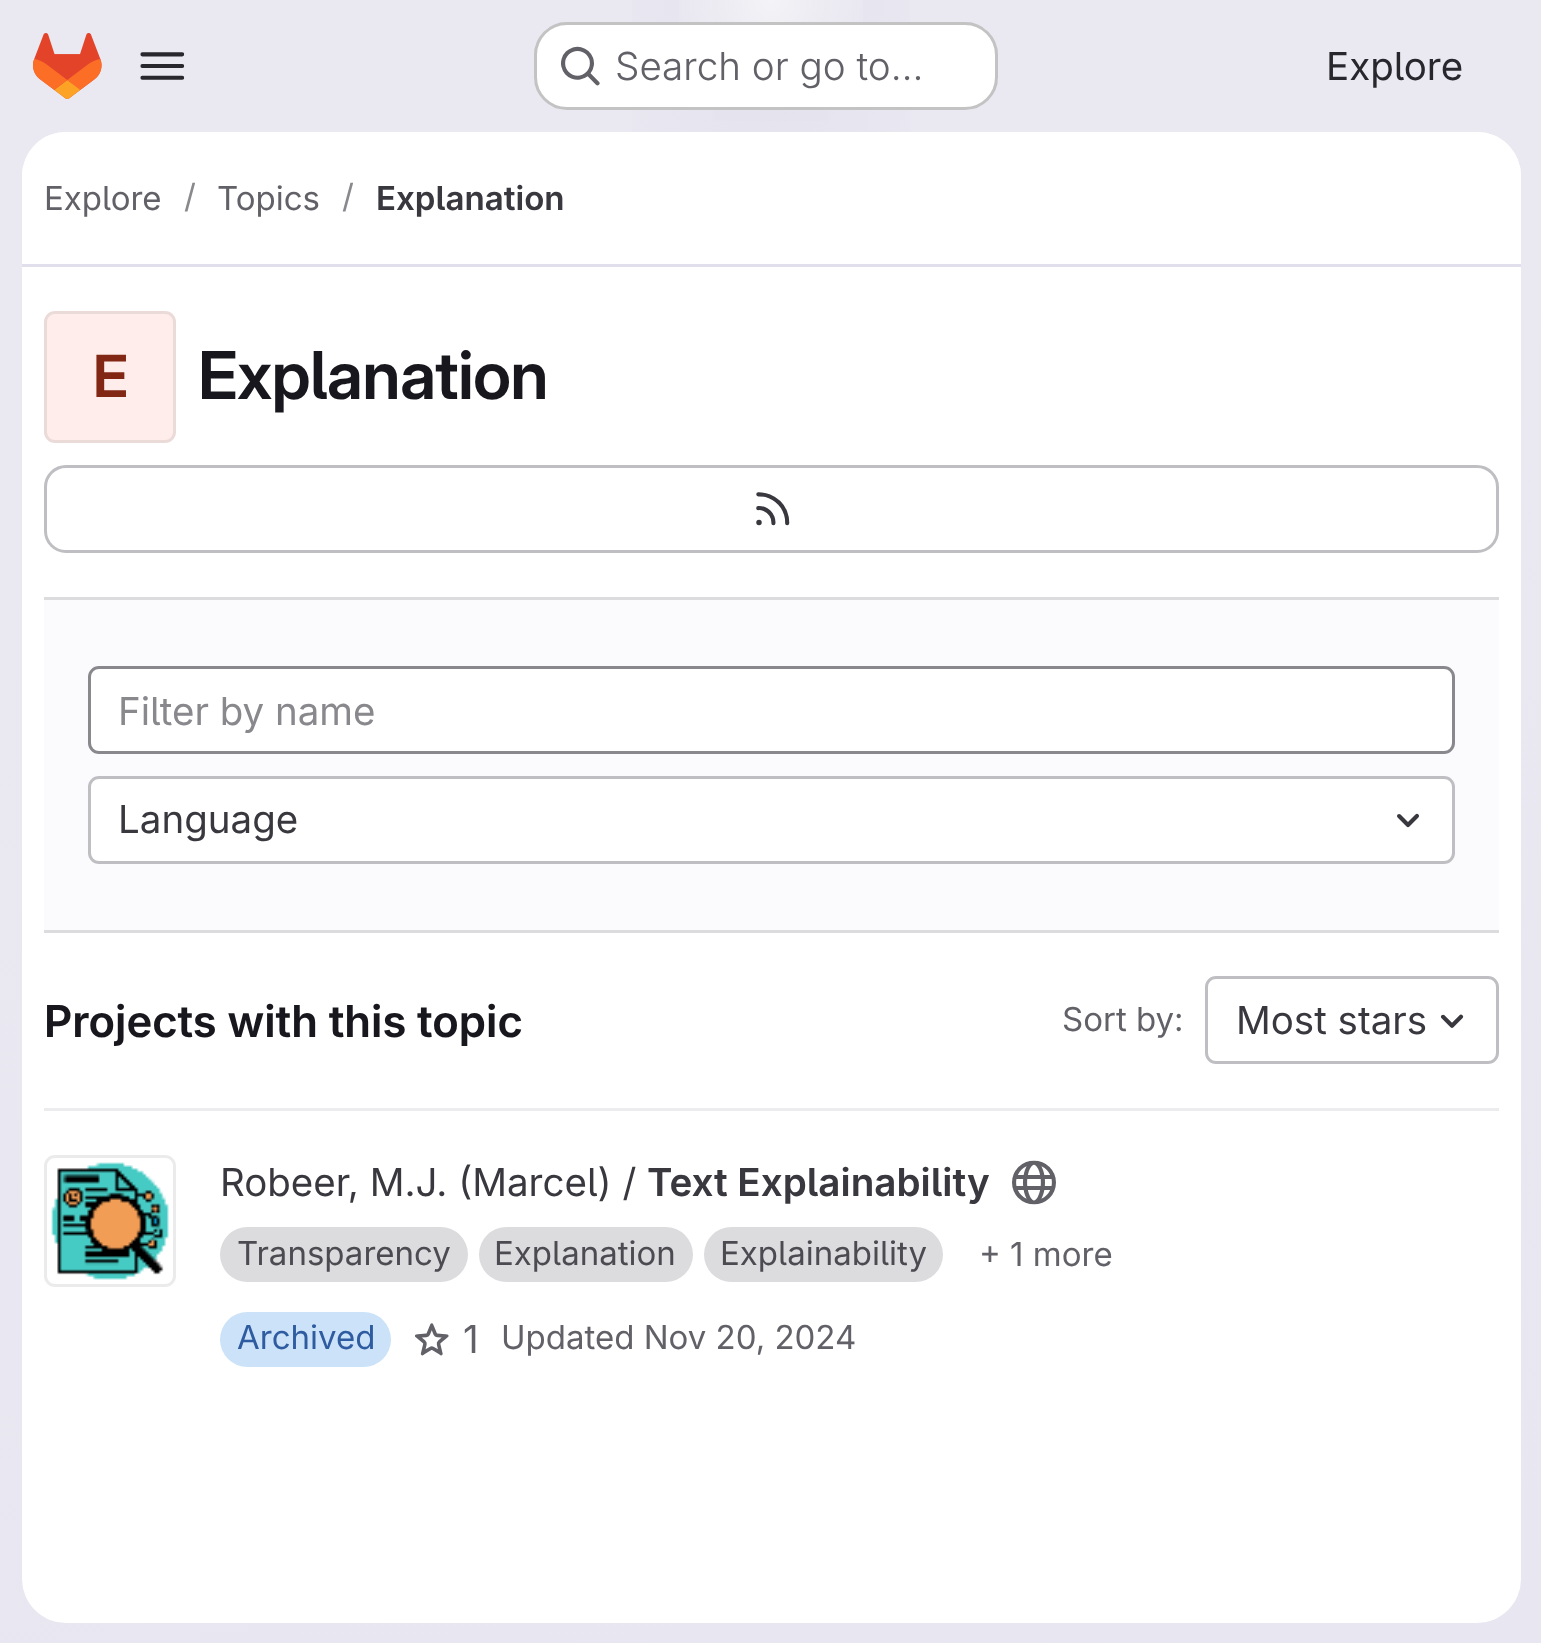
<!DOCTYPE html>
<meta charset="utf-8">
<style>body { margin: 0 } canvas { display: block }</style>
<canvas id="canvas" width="1541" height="1643"></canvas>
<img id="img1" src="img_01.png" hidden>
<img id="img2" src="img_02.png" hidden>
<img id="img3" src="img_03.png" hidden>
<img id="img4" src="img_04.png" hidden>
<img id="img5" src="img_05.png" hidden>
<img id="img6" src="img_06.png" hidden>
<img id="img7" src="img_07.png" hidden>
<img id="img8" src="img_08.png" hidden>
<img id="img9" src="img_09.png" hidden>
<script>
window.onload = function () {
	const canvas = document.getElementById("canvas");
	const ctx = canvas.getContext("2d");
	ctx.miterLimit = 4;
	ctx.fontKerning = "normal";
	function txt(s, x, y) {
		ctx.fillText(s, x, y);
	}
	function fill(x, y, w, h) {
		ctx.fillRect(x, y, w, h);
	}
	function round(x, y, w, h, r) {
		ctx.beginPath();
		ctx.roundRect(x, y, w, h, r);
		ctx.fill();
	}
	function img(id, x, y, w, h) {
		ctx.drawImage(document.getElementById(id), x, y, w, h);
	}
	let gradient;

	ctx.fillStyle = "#FFFFFF";
	fill(0, 0, 1541, 1643);
	gradient = ctx.createLinearGradient(935, 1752, 608, -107);
	gradient.addColorStop(0, "#E8E6F0");
	gradient.addColorStop(0.7, "#EAE9F2");
	ctx.fillStyle = gradient;
	fill(0, 0, 1541, 1643);
	gradient = ctx.createRadialGradient(771, 0, 0, 771, 0, 771);
	gradient.addColorStop(0, "#E4E2ED");
	gradient.addColorStop(0.25, "rgba(228, 226, 237, 0)");
	ctx.fillStyle = gradient;
	ctx.beginPath();
	ctx.rect(632, 0, 278, 132);
	ctx.save();
	ctx.clip();
	ctx.scale(1, 1645 / 771);
	ctx.fillRect(0, 0, 1541, 771);
	ctx.restore();
	gradient = ctx.createRadialGradient(771, 0, 0, 771, 0, 771);
	gradient.addColorStop(0, "#E4E2EC");
	gradient.addColorStop(0.18, "rgba(228, 226, 236, 0)");
	ctx.fillStyle = gradient;
	ctx.beginPath();
	ctx.rect(713, 0, 116, 121);
	ctx.save();
	ctx.clip();
	ctx.scale(1, 1645 / 771);
	ctx.fillRect(0, 0, 1541, 771);
	ctx.restore();
	gradient = ctx.createRadialGradient(771, 0, 0, 771, 0, 1816);
	gradient.addColorStop(0, "rgba(255, 255, 255, 0.6)");
	gradient.addColorStop(0.06, "rgba(255, 255, 255, 0)");
	ctx.fillStyle = gradient;
	fill(679, 0, 184, 22);
	img("img1", 33, 33, 69, 66);
	img("img2", 140, 52, 45, 28);
	ctx.fillStyle = "#FFFFFF";
	round(534, 22, 464, 88, 33);
	ctx.beginPath();
	ctx.roundRect(535.5, 23.5, 461, 85, 31.5);
	ctx.strokeStyle = "rgba(5, 5, 6, 0.24)";
	ctx.lineWidth = 3;
	ctx.stroke();
	img("img3", 561, 46, 39, 40);
	round(22, 132, 1499, 1491, 44);
	ctx.beginPath();
	ctx.roundRect(22, 132, 1499, 135, [44, 44, 0, 0]);
	ctx.fill();
	ctx.fillStyle = "#E1DFEC";
	fill(22, 264, 1499, 3);
	ctx.fillStyle = "#FEEDEB";
	round(44, 311, 132, 132, 11);
	ctx.beginPath();
	ctx.roundRect(45.5, 312.5, 129, 129, 9.5);
	ctx.strokeStyle = "rgba(5, 5, 6, 0.08)";
	ctx.stroke();
	ctx.beginPath();
	ctx.roundRect(45.5, 466.5, 1452, 85, 20.5);
	ctx.strokeStyle = "#BFBFC3";
	ctx.stroke();
	img("img4", 756, 492, 34, 34);
	ctx.fillStyle = "#FBFAFD";
	fill(44, 600, 1455, 330);
	ctx.fillStyle = "#DCDCDE";
	fill(44, 597, 1455, 3);
	fill(44, 930, 1455, 3);
	ctx.fillStyle = "#FFFFFF";
	ctx.beginPath();
	ctx.roundRect(89.5, 667.5, 1364, 85, 9.5);
	ctx.fill();
	ctx.strokeStyle = "#89888D";
	ctx.stroke();
	ctx.beginPath();
	ctx.roundRect(89.5, 777.5, 1364, 85, 9.5);
	ctx.fill();
	ctx.strokeStyle = "#BFBFC3";
	ctx.stroke();
	img("img5", 1397, 813, 22, 15);
	ctx.fillStyle = "#ECECEF";
	fill(44, 1108, 1455, 3);
	ctx.beginPath();
	ctx.roundRect(1206.5, 977.5, 291, 85, 9.5);
	ctx.stroke();
	img("img6", 1440, 1014, 24, 14);
	img("img7", 51, 1162, 118, 118);
	ctx.beginPath();
	ctx.roundRect(45.5, 1156.5, 129, 129, 9.5);
	ctx.strokeStyle = "#EBEBEB";
	ctx.stroke();
	img("img8", 1012, 1160, 44, 45);
	ctx.fillStyle = "#DCDCDE";
	round(220, 1227, 248, 55, 27.5);
	round(479, 1227, 214, 55, 27.5);
	round(704, 1227, 239, 55, 27.5);
	ctx.fillStyle = "#CBE2F9";
	round(220, 1312, 171, 55, 27.5);
	img("img9", 415, 1323, 34, 33);
	ctx.font = "300 38.5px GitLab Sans";
	ctx.fillStyle = "#626168";
	txt("Search or go to…", 615, 80);
	ctx.font = "38.5px GitLab Sans";
	ctx.fillStyle = "#28272D";
	txt("Explore", 1326, 80);
	ctx.font = "33px GitLab Sans";
	ctx.fillStyle = "#626168";
	txt("Explore", 44, 210);
	ctx.fillStyle = "#89888D";
	txt("/", 184, 208);
	ctx.fillStyle = "#626168";
	txt("Topics", 217, 210);
	ctx.fillStyle = "#89888D";
	txt("/", 342, 208);
	ctx.font = "600 33px 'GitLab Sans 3'";
	ctx.fillStyle = "#3A383F";
	txt("Explanation", 376, 210);
	ctx.letterSpacing = "-0.75px";
	ctx.font = "600 58px 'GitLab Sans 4'";
	ctx.fillStyle = "#812713";
	txt("E", 93, 397);
	ctx.font = "600 66px GitLab Sans";
	ctx.fillStyle = "#18171D";
	txt("Explanation", 198, 399);
	ctx.letterSpacing = "0px";
	ctx.font = "38.5px GitLab Sans";
	ctx.fillStyle = "#89888D";
	txt("Filter by name", 118, 725);
	ctx.fillStyle = "#3A383F";
	txt("Language", 118, 833);
	ctx.font = "600 44px 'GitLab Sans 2'";
	ctx.fillStyle = "#18171D";
	txt("Projects with this topic", 44, 1037);
	ctx.font = "33px GitLab Sans";
	ctx.fillStyle = "#626168";
	txt("Sort by:", 1062, 1031);
	ctx.font = "38.5px GitLab Sans";
	ctx.fillStyle = "#3A383F";
	txt("Most stars", 1236, 1034);
	txt("Robeer, M.J. (Marcel) /", 220, 1196);
	ctx.font = "600 38.5px 'GitLab Sans 3'";
	txt("Text Explainability", 647, 1196);
	ctx.font = "33px GitLab Sans";
	ctx.fillStyle = "#4C4B51";
	txt("Transparency", 237, 1265);
	txt("Explanation", 494, 1265);
	txt("Explainability", 720, 1265);
	ctx.fillStyle = "#626168";
	txt("+ 1 more", 979, 1266);
	ctx.fillStyle = "#2F5CA0";
	txt("Archived", 237, 1349);
	ctx.font = "38.5px GitLab Sans";
	ctx.fillStyle = "#626168";
	txt("1", 463, 1353);
	ctx.font = "33px GitLab Sans";
	txt("Updated Nov 20, 2024", 501, 1349);
};
</script>
